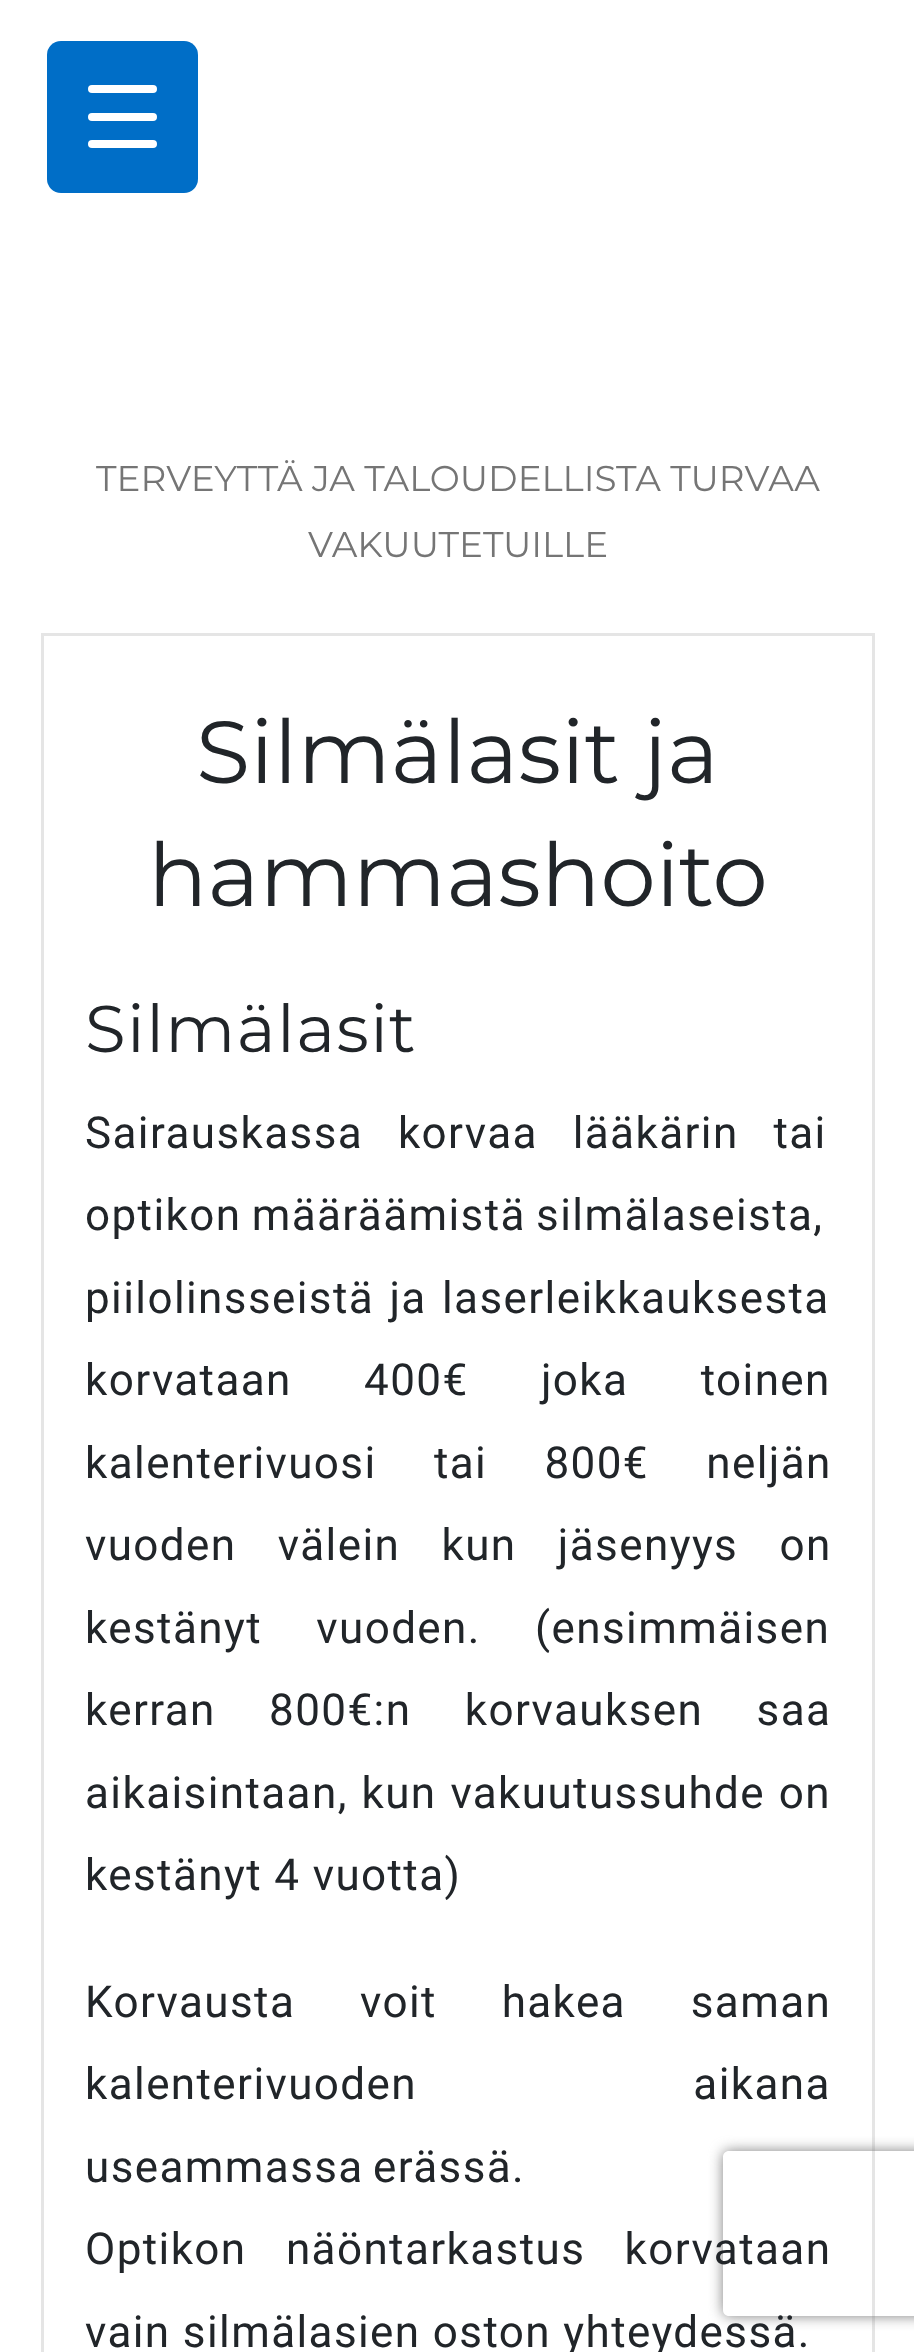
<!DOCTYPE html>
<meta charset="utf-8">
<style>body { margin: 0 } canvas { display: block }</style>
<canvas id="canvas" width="914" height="2352"></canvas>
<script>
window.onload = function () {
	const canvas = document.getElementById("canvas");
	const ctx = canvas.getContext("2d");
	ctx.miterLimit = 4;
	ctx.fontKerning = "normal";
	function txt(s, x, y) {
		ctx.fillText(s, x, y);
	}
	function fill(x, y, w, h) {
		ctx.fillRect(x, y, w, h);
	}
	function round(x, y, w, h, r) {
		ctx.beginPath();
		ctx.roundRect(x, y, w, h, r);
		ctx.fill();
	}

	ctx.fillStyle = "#FFFFFF";
	fill(0, 0, 914, 2352);
	ctx.fillStyle = "#006EC7";
	round(47, 41, 151, 152, 14);
	ctx.fillStyle = "#FFFFFF";
	round(88, 113, 69, 8, 4);
	round(88, 85, 69, 8, 4);
	round(88, 140, 69, 8, 4);
	ctx.strokeStyle = "#E5E5E5";
	ctx.lineWidth = 3;
	ctx.strokeRect(42.5, 634.5, 831, 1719);
	ctx.save();
	ctx.beginPath();
	ctx.moveTo(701, 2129);
	ctx.lineTo(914, 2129);
	ctx.lineTo(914, 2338);
	ctx.lineTo(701, 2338);
	ctx.closePath();
	ctx.moveTo(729, 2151);
	ctx.lineTo(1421, 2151);
	ctx.bezierCurveTo(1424.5, 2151, 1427, 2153.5, 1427, 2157);
	ctx.lineTo(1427, 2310);
	ctx.bezierCurveTo(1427, 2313.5, 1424.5, 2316, 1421, 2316);
	ctx.lineTo(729, 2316);
	ctx.bezierCurveTo(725.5, 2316, 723, 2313.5, 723, 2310);
	ctx.lineTo(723, 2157);
	ctx.bezierCurveTo(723, 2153.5, 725.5, 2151, 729, 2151);
	ctx.closePath();
	ctx.clip("evenodd");
	ctx.fillStyle = "#808080";
	ctx.filter = "blur(7px)";
	ctx.beginPath();
	ctx.roundRect(723, 2151, 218, 165, 6);
	ctx.fill();
	ctx.filter = "none";
	ctx.restore();
	ctx.font = "35.75px Montserrat";
	ctx.fillStyle = "#757575";
	txt("TERVEYTTÄ JA TALOUDELLISTA TURVAA", 96, 491);
	txt("VAKUUTETUILLE", 308, 557);
	ctx.font = "88px Montserrat";
	ctx.fillStyle = "#212529";
	txt("Silmälasit ja", 196, 783);
	txt("hammashoito", 148, 906);
	ctx.letterSpacing = "1.4px";
	ctx.font = "66px Montserrat";
	txt("Silmälasit", 85, 1052);
	ctx.wordSpacing = "22.5px";
	ctx.font = "44px Roboto";
	txt("Sairauskassa korvaa lääkärin tai", 85, 1148);
	ctx.wordSpacing = "-2px";
	txt("optikon määräämistä silmälaseista,", 85, 1230);
	ctx.wordSpacing = "3px";
	txt("piilolinsseistä ja laserleikkauksesta", 85, 1313);
	ctx.wordSpacing = "60px";
	ctx.font = "44px 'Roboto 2'";
	txt("korvataan 400€ joka toinen", 85, 1395);
	ctx.wordSpacing = "45px";
	txt("kalenterivuosi tai 800€ neljän", 85, 1478);
	ctx.wordSpacing = "29px";
	txt("vuoden välein kun jäsenyys on", 85, 1560);
	ctx.wordSpacing = "42px";
	txt("kestänyt vuoden. (ensimmäisen", 85, 1643);
	ctx.wordSpacing = "41px";
	txt("kerran 800€:n korvauksen saa", 85, 1725);
	ctx.wordSpacing = "1.5px";
	txt("aikaisintaan, kun vakuutussuhde on", 85, 1808);
	ctx.wordSpacing = "0px";
	txt("kestänyt 4 vuotta)", 85, 1890);
	ctx.wordSpacing = "52.5px";
	txt("Korvausta voit hakea saman", 85, 2017);
	ctx.wordSpacing = "264px";
	txt("kalenterivuoden aikana", 85, 2099);
	ctx.wordSpacing = "-3px";
	ctx.font = "44px Roboto";
	txt("useammassa erässä.", 85, 2182);
	ctx.wordSpacing = "27px";
	ctx.font = "44px 'Roboto 2'";
	txt("Optikon näöntarkastus korvataan", 85, 2264);
	ctx.wordSpacing = "0px";
	txt("vain silmälasien oston yhteydessä.", 85, 2347);
};
</script>
